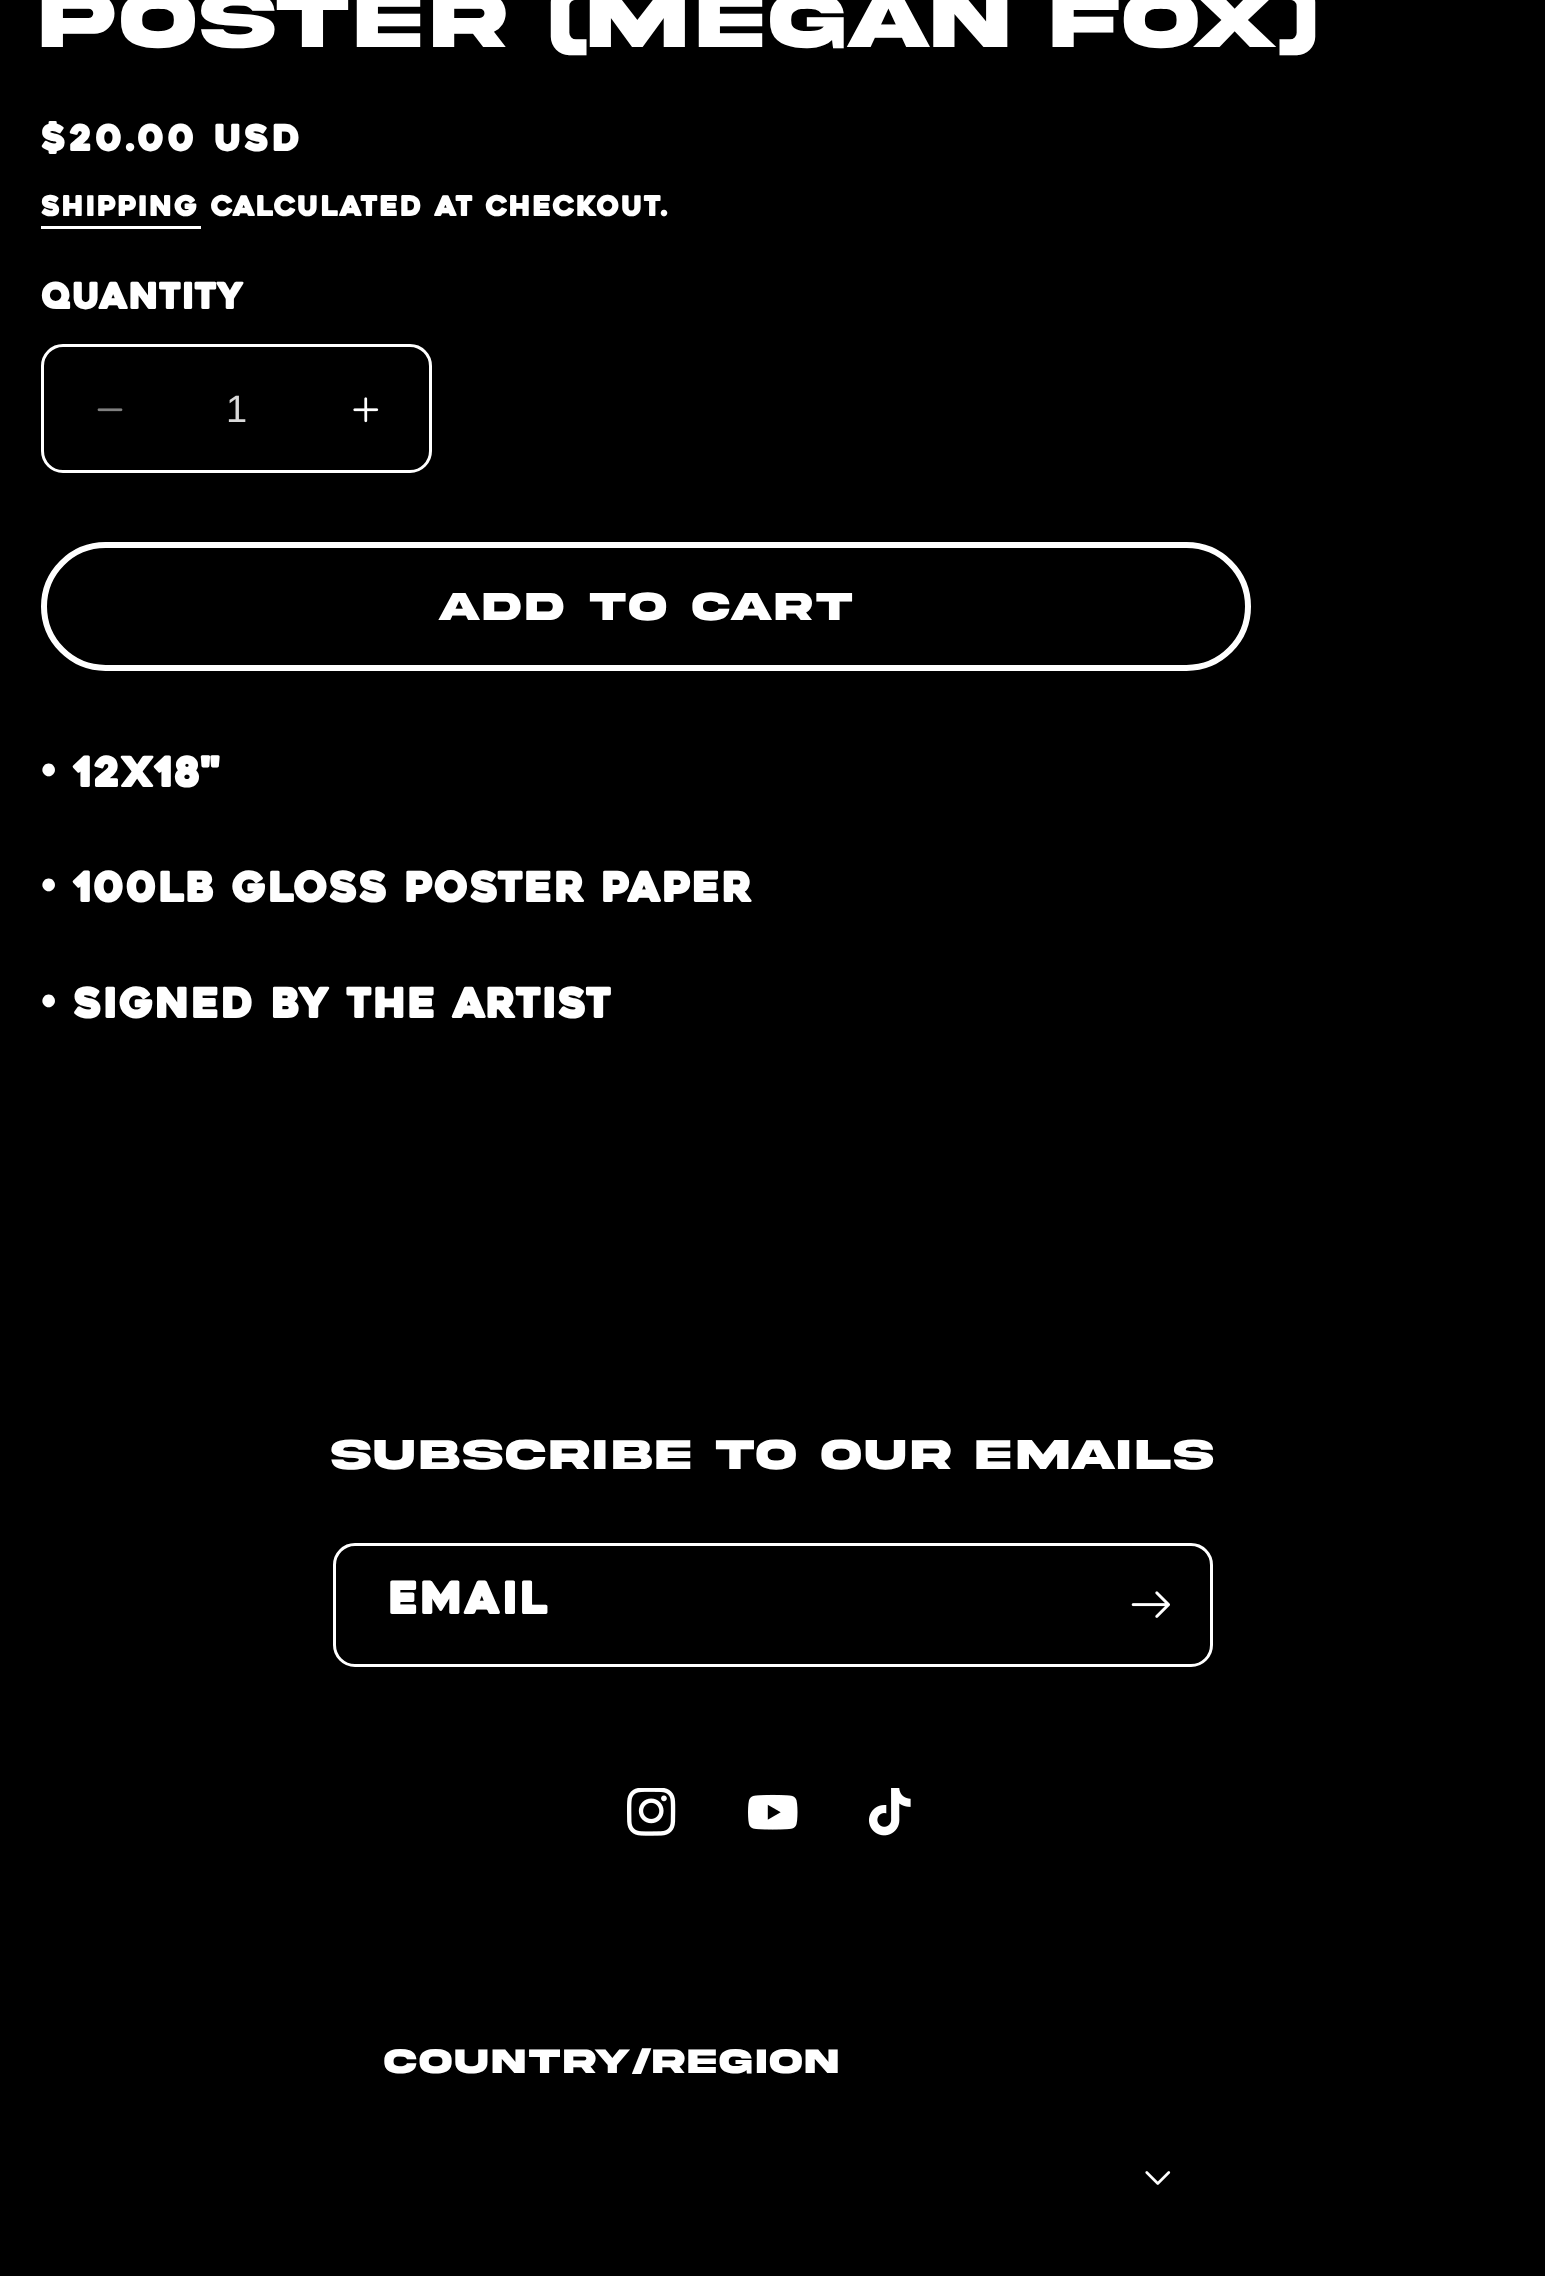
<!DOCTYPE html>
<meta charset="utf-8">
<style>body { margin: 0 } canvas { display: block }</style>
<canvas id="canvas" width="1545" height="2276"></canvas>
<img id="img1" src="img_01.png" hidden>
<img id="img2" src="img_02.png" hidden>
<img id="img3" src="img_03.png" hidden>
<img id="img4" src="img_04.png" hidden>
<img id="img5" src="img_05.png" hidden>
<img id="img6" src="img_06.png" hidden>
<img id="img7" src="img_07.png" hidden>
<script>
window.onload = function () {
	const canvas = document.getElementById("canvas");
	const ctx = canvas.getContext("2d");
	ctx.miterLimit = 4;
	ctx.fontKerning = "normal";
	function txt(s, x, y) {
		ctx.fillText(s, x, y);
	}
	function fill(x, y, w, h) {
		ctx.fillRect(x, y, w, h);
	}
	function img(id, x, y, w, h) {
		ctx.drawImage(document.getElementById(id), x, y, w, h);
	}

	ctx.fillStyle = "#000000";
	fill(0, 0, 1545, 2276);
	ctx.fillStyle = "#FFFFFF";
	fill(41, 226, 160, 3);
	ctx.beginPath();
	ctx.roundRect(42.5, 345.5, 388, 126, 20.5);
	ctx.strokeStyle = "#FFFFFF";
	ctx.lineWidth = 3;
	ctx.stroke();
	img("img1", 97, 408, 26, 4);
	img("img2", 353, 397, 26, 26);
	ctx.beginPath();
	ctx.roundRect(44, 545, 1204, 123, 61.5);
	ctx.lineWidth = 6;
	ctx.stroke();
	ctx.beginPath();
	ctx.roundRect(334.5, 1544.5, 877, 121, 20.5);
	ctx.lineWidth = 3;
	ctx.stroke();
	img("img3", 1131, 1591, 39, 27);
	img("img4", 627, 1788, 49, 48);
	img("img5", 748, 1794, 50, 36);
	img("img6", 869, 1788, 42, 48);
	img("img7", 1145, 2171, 26, 14);
	ctx.letterSpacing = "1.65px";
	ctx.font = "bold 82.5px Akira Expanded";
	txt("Poster (Megan fox)", 41, 47);
	ctx.letterSpacing = "3.5px";
	ctx.font = "bold 35.75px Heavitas";
	txt("$20.00 USD", 41, 151);
	ctx.letterSpacing = "1.9px";
	ctx.font = "bold 27.5px Heavitas";
	txt("Shipping calculated at checkout.", 41, 216);
	ctx.letterSpacing = "1.1px";
	ctx.font = "bold 35.75px Heavitas";
	txt("Quantity", 41, 309);
	ctx.letterSpacing = "0px";
	ctx.font = "38px Liberation Sans";
	ctx.fillStyle = "#D9D9D9";
	txt("1", 226, 422);
	ctx.letterSpacing = "2.75px";
	ctx.font = "bold 41.25px Akira Expanded";
	ctx.fillStyle = "#FFFFFF";
	txt("ADD TO CART", 438, 620);
	ctx.letterSpacing = "1.65px";
	ctx.font = "bold 41.25px Heavitas";
	txt("• 12x18\"", 41, 787);
	txt("• 100lb gloss poster paper", 41, 902);
	txt("• Signed by the artist", 41, 1018);
	ctx.font = "bold 44px Akira Expanded";
	txt("Subscribe to our emails", 331, 1469);
	ctx.letterSpacing = "2.75px";
	ctx.font = "bold 44px Heavitas";
	txt("Email", 388, 1614);
	ctx.letterSpacing = "1.1px";
	ctx.font = "bold 35.75px Akira Expanded";
	txt("Country/region", 384, 2073);
};
</script>
